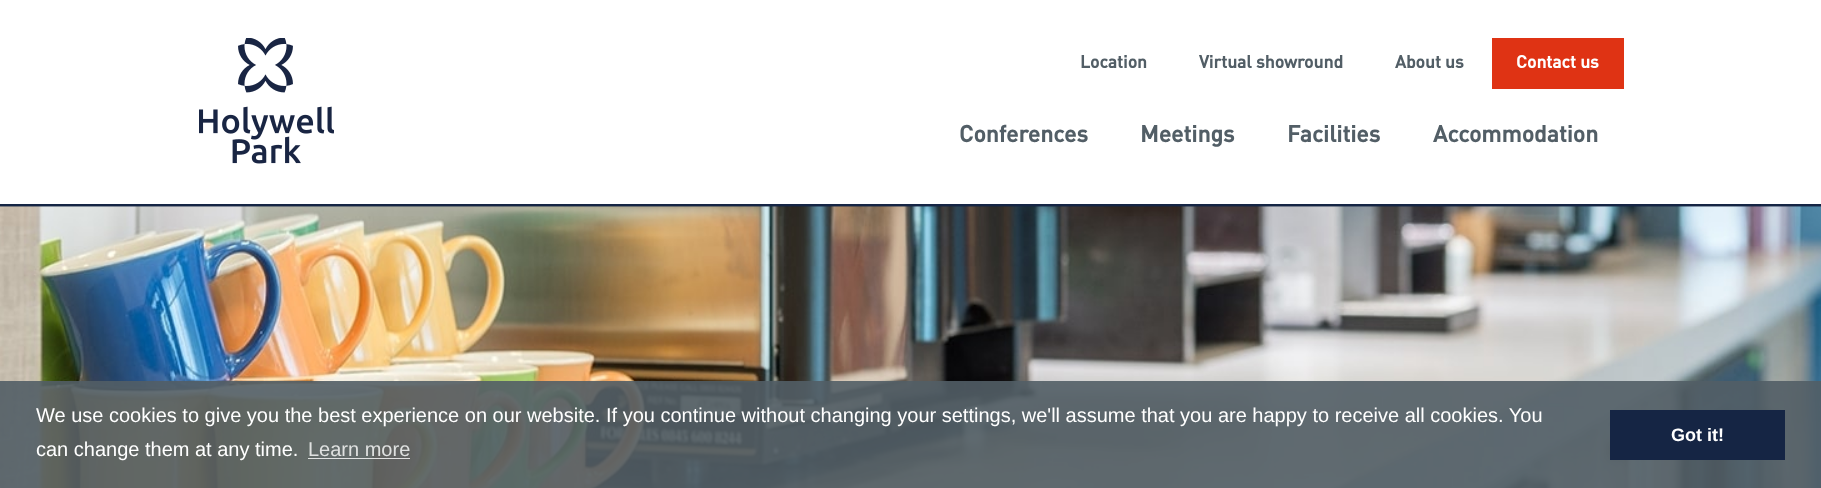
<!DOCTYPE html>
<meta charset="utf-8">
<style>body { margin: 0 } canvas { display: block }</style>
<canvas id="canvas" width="1821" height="488"></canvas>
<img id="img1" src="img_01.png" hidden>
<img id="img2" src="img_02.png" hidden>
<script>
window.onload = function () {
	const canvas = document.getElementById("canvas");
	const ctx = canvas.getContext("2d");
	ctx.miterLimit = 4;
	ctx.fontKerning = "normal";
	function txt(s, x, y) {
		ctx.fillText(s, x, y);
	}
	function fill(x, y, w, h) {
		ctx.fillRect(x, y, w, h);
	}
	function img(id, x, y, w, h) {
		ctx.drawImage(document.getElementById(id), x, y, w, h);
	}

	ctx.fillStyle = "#FFFFFF";
	fill(0, 0, 1821, 488);
	ctx.fillStyle = "#152544";
	fill(0, 204, 1821, 3);
	img("img1", 199, 38, 135, 126);
	ctx.fillStyle = "#DF3314";
	fill(1492, 38, 132, 51);
	img("img2", 0, 206, 1821, 282);
	ctx.fillStyle = "rgba(82, 94, 102, 0.9)";
	fill(0, 381, 1821, 107);
	ctx.fillStyle = "rgba(255, 255, 255, 0.8)";
	fill(308, 458, 102, 1);
	ctx.fillStyle = "#152544";
	fill(1610, 410, 175, 50);
	ctx.font = "bold 17.5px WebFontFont";
	ctx.fillStyle = "#525E66";
	txt("Location", 1080, 68);
	txt("Virtual showround", 1199, 68);
	txt("About us", 1395, 68);
	ctx.fillStyle = "#FFFFFF";
	txt("Contact us", 1516, 68);
	ctx.font = "bold 23px WebFontFont";
	ctx.fillStyle = "#525E66";
	txt("Conferences", 959, 142);
	txt("Meetings", 1140, 142);
	txt("Facilities", 1287, 142);
	txt("Accommodation", 1433, 142);
	ctx.font = "20px Liberation Sans";
	ctx.fillStyle = "#FFFFFF";
	txt("We use cookies to give you the best experience on our website. If you continue without changing your settings, we'll assume that you are happy to receive all cookies. You", 36, 422);
	txt("can change them at any time.", 36, 456);
	ctx.fillStyle = "#DFE1E0";
	txt("Learn more", 308, 456);
	ctx.font = "bold 18px Liberation Sans";
	ctx.fillStyle = "#FFFFFF";
	txt("Got it!", 1671, 441);
};
</script>
